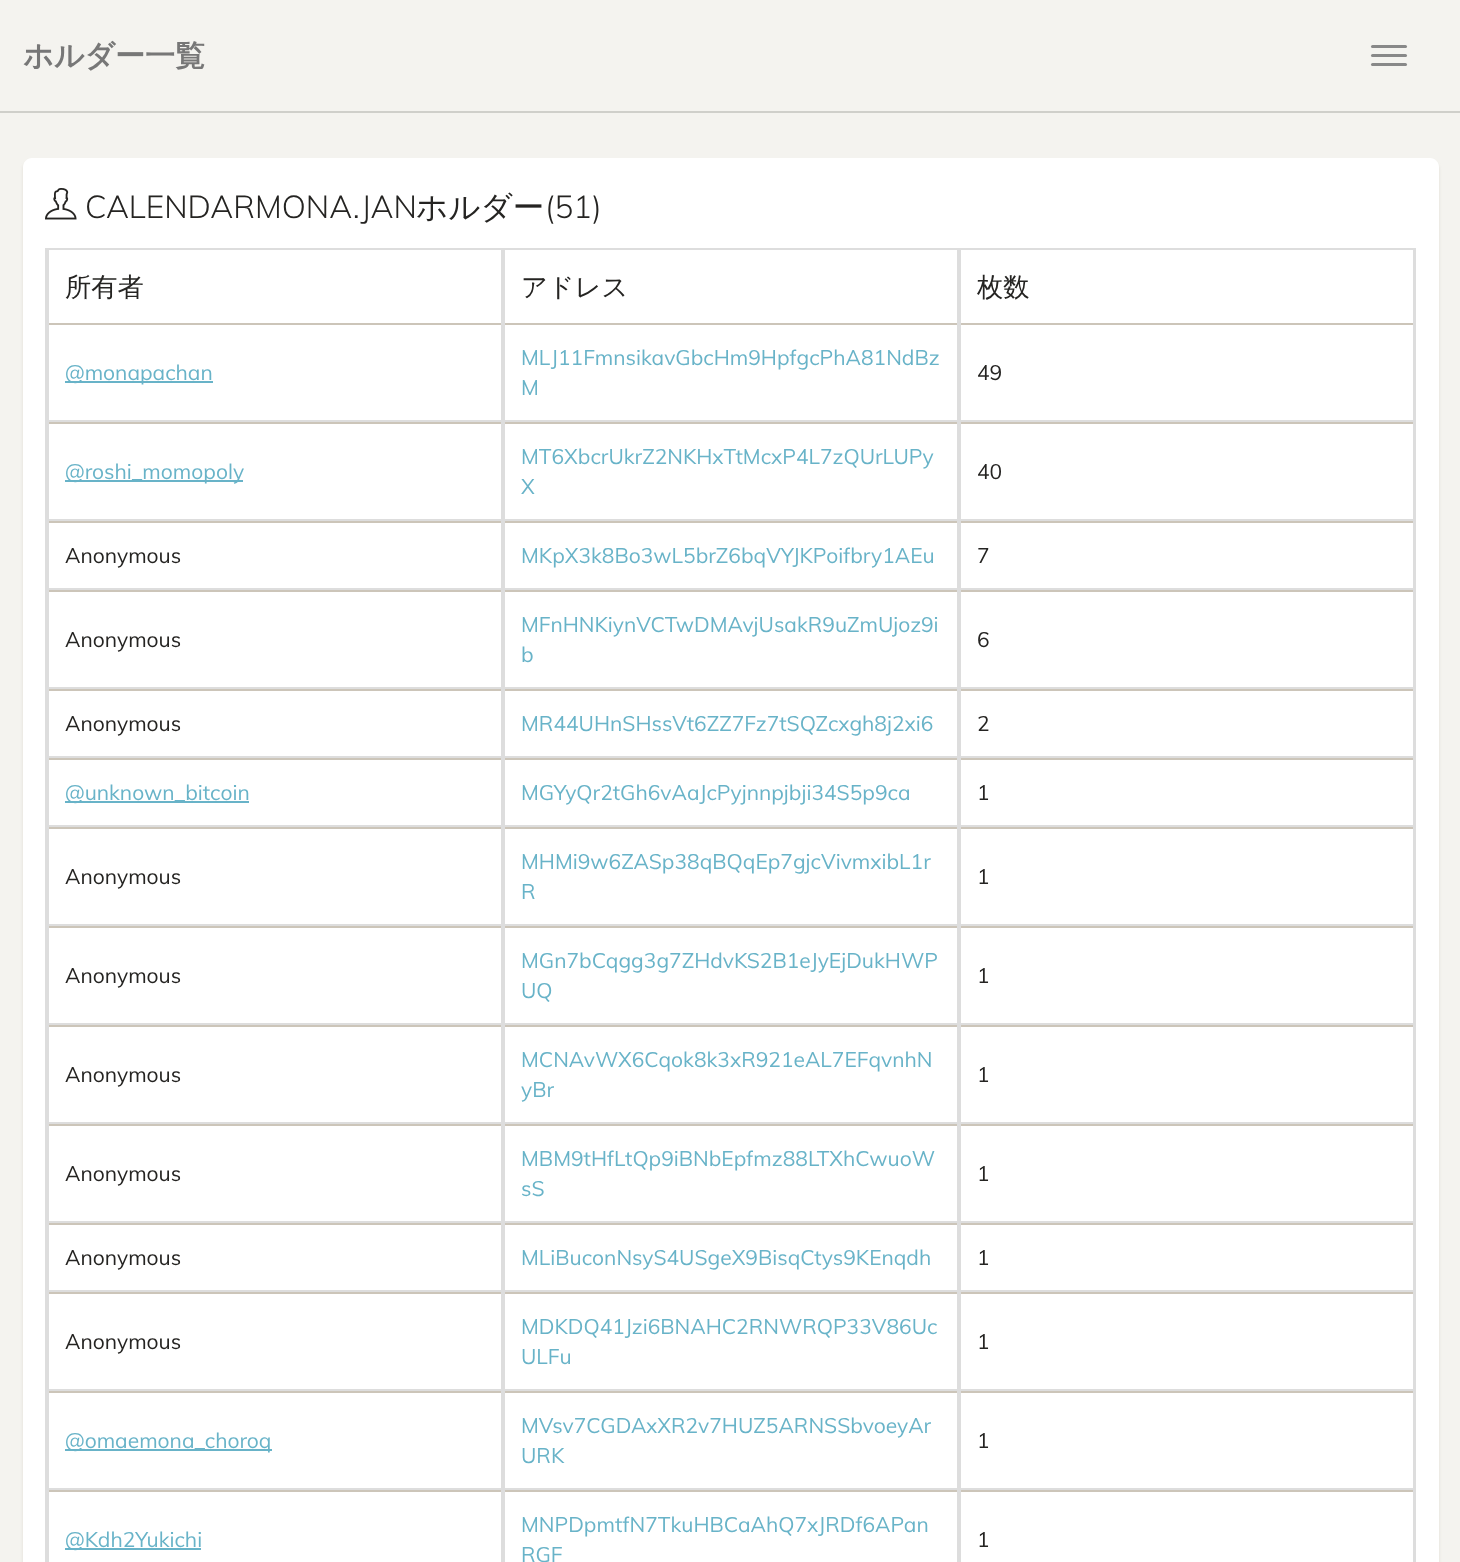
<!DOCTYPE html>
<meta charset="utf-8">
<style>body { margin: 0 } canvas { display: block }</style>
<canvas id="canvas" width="1460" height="1562"></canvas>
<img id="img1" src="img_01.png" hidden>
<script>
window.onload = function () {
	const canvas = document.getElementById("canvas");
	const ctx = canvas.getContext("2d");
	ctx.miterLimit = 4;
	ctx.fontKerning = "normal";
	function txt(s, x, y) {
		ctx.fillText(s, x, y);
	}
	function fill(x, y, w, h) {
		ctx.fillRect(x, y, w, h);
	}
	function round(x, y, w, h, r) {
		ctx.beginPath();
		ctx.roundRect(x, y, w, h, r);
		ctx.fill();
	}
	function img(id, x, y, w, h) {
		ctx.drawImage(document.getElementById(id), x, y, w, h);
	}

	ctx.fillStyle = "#F4F3EF";
	fill(0, 0, 1460, 1562);
	ctx.fillStyle = "#CFCFCA";
	fill(0, 111, 1460, 2);
	ctx.fillStyle = "#888888";
	round(1371, 45, 36, 3, 1.5);
	round(1371, 54, 36, 3, 1.5);
	round(1371, 63, 36, 3, 1.5);
	ctx.fillStyle = "rgba(204, 197, 185, 0.5)";
	ctx.filter = "blur(1.5px)";
	ctx.beginPath();
	ctx.roundRect(23, 161, 1416, 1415, 9);
	ctx.fill();
	ctx.filter = "none";
	ctx.fillStyle = "#FFFFFF";
	ctx.beginPath();
	ctx.moveTo(32, 158);
	ctx.lineTo(1430, 158);
	ctx.bezierCurveTo(1435, 158, 1439, 162, 1439, 167);
	ctx.lineTo(1439, 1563);
	ctx.lineTo(23, 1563);
	ctx.lineTo(23, 167);
	ctx.bezierCurveTo(23, 162, 27, 158, 32, 158);
	ctx.closePath();
	ctx.fill();
	img("img1", 45, 188, 32, 32);
	ctx.strokeStyle = "#DDDDDD";
	ctx.lineWidth = 2;
	ctx.strokeRect(46, 249, 1369, 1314);
	ctx.fillStyle = "#DDDDDD";
	fill(501, 249, 4, 74);
	fill(47, 249, 2, 74);
	fill(957, 249, 4, 74);
	fill(1413, 249, 1, 74);
	ctx.fillStyle = "#CCC5B9";
	fill(47, 323, 1368, 2);
	ctx.fillStyle = "#DDDDDD";
	fill(501, 323, 2, 99);
	fill(47, 420, 456, 2);
	fill(47, 323, 2, 99);
	ctx.fillStyle = "#68B3C8";
	fill(65, 381, 148, 2);
	ctx.fillStyle = "#DDDDDD";
	fill(957, 323, 2, 99);
	fill(503, 420, 456, 2);
	fill(503, 323, 2, 99);
	fill(1413, 323, 2, 99);
	fill(959, 420, 456, 2);
	fill(959, 323, 2, 99);
	ctx.fillStyle = "#CCC5B9";
	fill(47, 422, 1368, 2);
	ctx.fillStyle = "#DDDDDD";
	fill(501, 422, 2, 99);
	fill(47, 519, 456, 2);
	fill(47, 422, 2, 99);
	ctx.fillStyle = "#68B3C8";
	fill(65, 480, 178, 2);
	ctx.fillStyle = "#DDDDDD";
	fill(957, 422, 2, 99);
	fill(503, 519, 456, 2);
	fill(503, 422, 2, 99);
	fill(1413, 422, 2, 99);
	fill(959, 519, 456, 2);
	fill(959, 422, 2, 99);
	ctx.fillStyle = "#CCC5B9";
	fill(47, 521, 1368, 2);
	ctx.fillStyle = "#DDDDDD";
	fill(501, 521, 2, 69);
	fill(47, 588, 456, 2);
	fill(47, 521, 2, 69);
	fill(957, 521, 2, 69);
	fill(503, 588, 456, 2);
	fill(503, 521, 2, 69);
	fill(1413, 521, 2, 69);
	fill(959, 588, 456, 2);
	fill(959, 521, 2, 69);
	ctx.fillStyle = "#CCC5B9";
	fill(47, 590, 1368, 2);
	ctx.fillStyle = "#DDDDDD";
	fill(501, 590, 2, 99);
	fill(47, 687, 456, 2);
	fill(47, 590, 2, 99);
	fill(957, 590, 2, 99);
	fill(503, 687, 456, 2);
	fill(503, 590, 2, 99);
	fill(1413, 590, 2, 99);
	fill(959, 687, 456, 2);
	fill(959, 590, 2, 99);
	ctx.fillStyle = "#CCC5B9";
	fill(47, 689, 1368, 2);
	ctx.fillStyle = "#DDDDDD";
	fill(501, 689, 2, 69);
	fill(47, 756, 456, 2);
	fill(47, 689, 2, 69);
	fill(957, 689, 2, 69);
	fill(503, 756, 456, 2);
	fill(503, 689, 2, 69);
	fill(1413, 689, 2, 69);
	fill(959, 756, 456, 2);
	fill(959, 689, 2, 69);
	ctx.fillStyle = "#CCC5B9";
	fill(47, 758, 1368, 2);
	ctx.fillStyle = "#DDDDDD";
	fill(501, 758, 2, 69);
	fill(47, 825, 456, 2);
	fill(47, 758, 2, 69);
	ctx.fillStyle = "#68B3C8";
	fill(65, 801, 184, 2);
	ctx.fillStyle = "#DDDDDD";
	fill(957, 758, 2, 69);
	fill(503, 825, 456, 2);
	fill(503, 758, 2, 69);
	fill(1413, 758, 2, 69);
	fill(959, 825, 456, 2);
	fill(959, 758, 2, 69);
	ctx.fillStyle = "#CCC5B9";
	fill(47, 827, 1368, 2);
	ctx.fillStyle = "#DDDDDD";
	fill(501, 827, 2, 99);
	fill(47, 924, 456, 2);
	fill(47, 827, 2, 99);
	fill(957, 827, 2, 99);
	fill(503, 924, 456, 2);
	fill(503, 827, 2, 99);
	fill(1413, 827, 2, 99);
	fill(959, 924, 456, 2);
	fill(959, 827, 2, 99);
	ctx.fillStyle = "#CCC5B9";
	fill(47, 926, 1368, 2);
	ctx.fillStyle = "#DDDDDD";
	fill(501, 926, 2, 99);
	fill(47, 1023, 456, 2);
	fill(47, 926, 2, 99);
	fill(957, 926, 2, 99);
	fill(503, 1023, 456, 2);
	fill(503, 926, 2, 99);
	fill(1413, 926, 2, 99);
	fill(959, 1023, 456, 2);
	fill(959, 926, 2, 99);
	ctx.fillStyle = "#CCC5B9";
	fill(47, 1025, 1368, 2);
	ctx.fillStyle = "#DDDDDD";
	fill(501, 1025, 2, 99);
	fill(47, 1122, 456, 2);
	fill(47, 1025, 2, 99);
	fill(957, 1025, 2, 99);
	fill(503, 1122, 456, 2);
	fill(503, 1025, 2, 99);
	fill(1413, 1025, 2, 99);
	fill(959, 1122, 456, 2);
	fill(959, 1025, 2, 99);
	ctx.fillStyle = "#CCC5B9";
	fill(47, 1124, 1368, 2);
	ctx.fillStyle = "#DDDDDD";
	fill(501, 1124, 2, 99);
	fill(47, 1221, 456, 2);
	fill(47, 1124, 2, 99);
	fill(957, 1124, 2, 99);
	fill(503, 1221, 456, 2);
	fill(503, 1124, 2, 99);
	fill(1413, 1124, 2, 99);
	fill(959, 1221, 456, 2);
	fill(959, 1124, 2, 99);
	ctx.fillStyle = "#CCC5B9";
	fill(47, 1223, 1368, 2);
	ctx.fillStyle = "#DDDDDD";
	fill(501, 1223, 2, 69);
	fill(47, 1290, 456, 2);
	fill(47, 1223, 2, 69);
	fill(957, 1223, 2, 69);
	fill(503, 1290, 456, 2);
	fill(503, 1223, 2, 69);
	fill(1413, 1223, 2, 69);
	fill(959, 1290, 456, 2);
	fill(959, 1223, 2, 69);
	ctx.fillStyle = "#CCC5B9";
	fill(47, 1292, 1368, 2);
	ctx.fillStyle = "#DDDDDD";
	fill(501, 1292, 2, 99);
	fill(47, 1389, 456, 2);
	fill(47, 1292, 2, 99);
	fill(957, 1292, 2, 99);
	fill(503, 1389, 456, 2);
	fill(503, 1292, 2, 99);
	fill(1413, 1292, 2, 99);
	fill(959, 1389, 456, 2);
	fill(959, 1292, 2, 99);
	ctx.fillStyle = "#CCC5B9";
	fill(47, 1391, 1368, 2);
	ctx.fillStyle = "#DDDDDD";
	fill(501, 1391, 2, 99);
	fill(47, 1488, 456, 2);
	fill(47, 1391, 2, 99);
	ctx.fillStyle = "#68B3C8";
	fill(65, 1449, 207, 2);
	ctx.fillStyle = "#DDDDDD";
	fill(957, 1391, 2, 99);
	fill(503, 1488, 456, 2);
	fill(503, 1391, 2, 99);
	fill(1413, 1391, 2, 99);
	fill(959, 1488, 456, 2);
	fill(959, 1391, 2, 99);
	ctx.fillStyle = "#CCC5B9";
	fill(47, 1490, 1368, 2);
	ctx.fillStyle = "#DDDDDD";
	fill(501, 1490, 4, 72);
	fill(47, 1490, 2, 72);
	ctx.fillStyle = "#68B3C8";
	fill(65, 1548, 136, 2);
	ctx.fillStyle = "#DDDDDD";
	fill(957, 1490, 4, 72);
	fill(1413, 1490, 2, 72);
	ctx.font = "bold 30px WenQuanYi Zen Hei";
	ctx.fillStyle = "#777777";
	txt("ホルダー一覧", 23, 66);
	ctx.font = "300 31.5px Muli";
	ctx.fillStyle = "#252422";
	txt("CALENDARMONA.JAN", 85, 218);
	ctx.font = "500 31.5px WenQuanYi Zen Hei";
	txt("ホルダー", 416, 218);
	ctx.font = "300 31.5px Muli";
	txt("(51)", 545, 218);
	ctx.font = "500 26.25px WenQuanYi Zen Hei";
	txt("所有者", 65, 296);
	txt("アドレス", 521, 296);
	txt("枚数", 977, 296);
	ctx.font = "21px Muli";
	ctx.fillStyle = "#68B3C8";
	txt("@monapachan", 65, 380);
	txt("MLJ11FmnsikavGbcHm9HpfgcPhA81NdBz", 521, 365);
	txt("M", 521, 395);
	ctx.fillStyle = "#252422";
	txt("49", 977, 380);
	ctx.fillStyle = "#68B3C8";
	txt("@roshi_momopoly", 65, 479);
	txt("MT6XbcrUkrZ2NKHxTtMcxP4L7zQUrLUPy", 521, 464);
	txt("X", 521, 494);
	ctx.fillStyle = "#252422";
	txt("40", 977, 479);
	txt("Anonymous", 65, 563);
	ctx.fillStyle = "#68B3C8";
	txt("MKpX3k8Bo3wL5brZ6bqVYJKPoifbry1AEu", 521, 563);
	ctx.fillStyle = "#252422";
	txt("7", 977, 563);
	txt("Anonymous", 65, 647);
	ctx.fillStyle = "#68B3C8";
	txt("MFnHNKiynVCTwDMAvjUsakR9uZmUjoz9i", 521, 632);
	txt("b", 521, 662);
	ctx.fillStyle = "#252422";
	txt("6", 977, 647);
	txt("Anonymous", 65, 731);
	ctx.fillStyle = "#68B3C8";
	txt("MR44UHnSHssVt6ZZ7Fz7tSQZcxgh8j2xi6", 521, 731);
	ctx.fillStyle = "#252422";
	txt("2", 977, 731);
	ctx.fillStyle = "#68B3C8";
	txt("@unknown_bitcoin", 65, 800);
	txt("MGYyQr2tGh6vAaJcPyjnnpjbji34S5p9ca", 521, 800);
	ctx.fillStyle = "#252422";
	txt("1", 977, 800);
	txt("Anonymous", 65, 884);
	ctx.fillStyle = "#68B3C8";
	txt("MHMi9w6ZASp38qBQqEp7gjcVivmxibL1r", 521, 869);
	txt("R", 521, 899);
	ctx.fillStyle = "#252422";
	txt("1", 977, 884);
	txt("Anonymous", 65, 983);
	ctx.fillStyle = "#68B3C8";
	txt("MGn7bCqgg3g7ZHdvKS2B1eJyEjDukHWP", 521, 968);
	txt("UQ", 521, 998);
	ctx.fillStyle = "#252422";
	txt("1", 977, 983);
	txt("Anonymous", 65, 1082);
	ctx.fillStyle = "#68B3C8";
	txt("MCNAvWX6Cqok8k3xR921eAL7EFqvnhN", 521, 1067);
	txt("yBr", 521, 1097);
	ctx.fillStyle = "#252422";
	txt("1", 977, 1082);
	txt("Anonymous", 65, 1181);
	ctx.fillStyle = "#68B3C8";
	txt("MBM9tHfLtQp9iBNbEpfmz88LTXhCwuoW", 521, 1166);
	txt("sS", 521, 1196);
	ctx.fillStyle = "#252422";
	txt("1", 977, 1181);
	txt("Anonymous", 65, 1265);
	ctx.fillStyle = "#68B3C8";
	txt("MLiBuconNsyS4USgeX9BisqCtys9KEnqdh", 521, 1265);
	ctx.fillStyle = "#252422";
	txt("1", 977, 1265);
	txt("Anonymous", 65, 1349);
	ctx.fillStyle = "#68B3C8";
	txt("MDKDQ41Jzi6BNAHC2RNWRQP33V86Uc", 521, 1334);
	txt("ULFu", 521, 1364);
	ctx.fillStyle = "#252422";
	txt("1", 977, 1349);
	ctx.fillStyle = "#68B3C8";
	txt("@omaemona_choroq", 65, 1448);
	txt("MVsv7CGDAxXR2v7HUZ5ARNSSbvoeyAr", 521, 1433);
	txt("URK", 521, 1463);
	ctx.fillStyle = "#252422";
	txt("1", 977, 1448);
	ctx.fillStyle = "#68B3C8";
	txt("@Kdh2Yukichi", 65, 1547);
	txt("MNPDpmtfN7TkuHBCaAhQ7xJRDf6APan", 521, 1532);
	txt("RGF", 521, 1562);
	ctx.fillStyle = "#252422";
	txt("1", 977, 1547);
};
</script>
